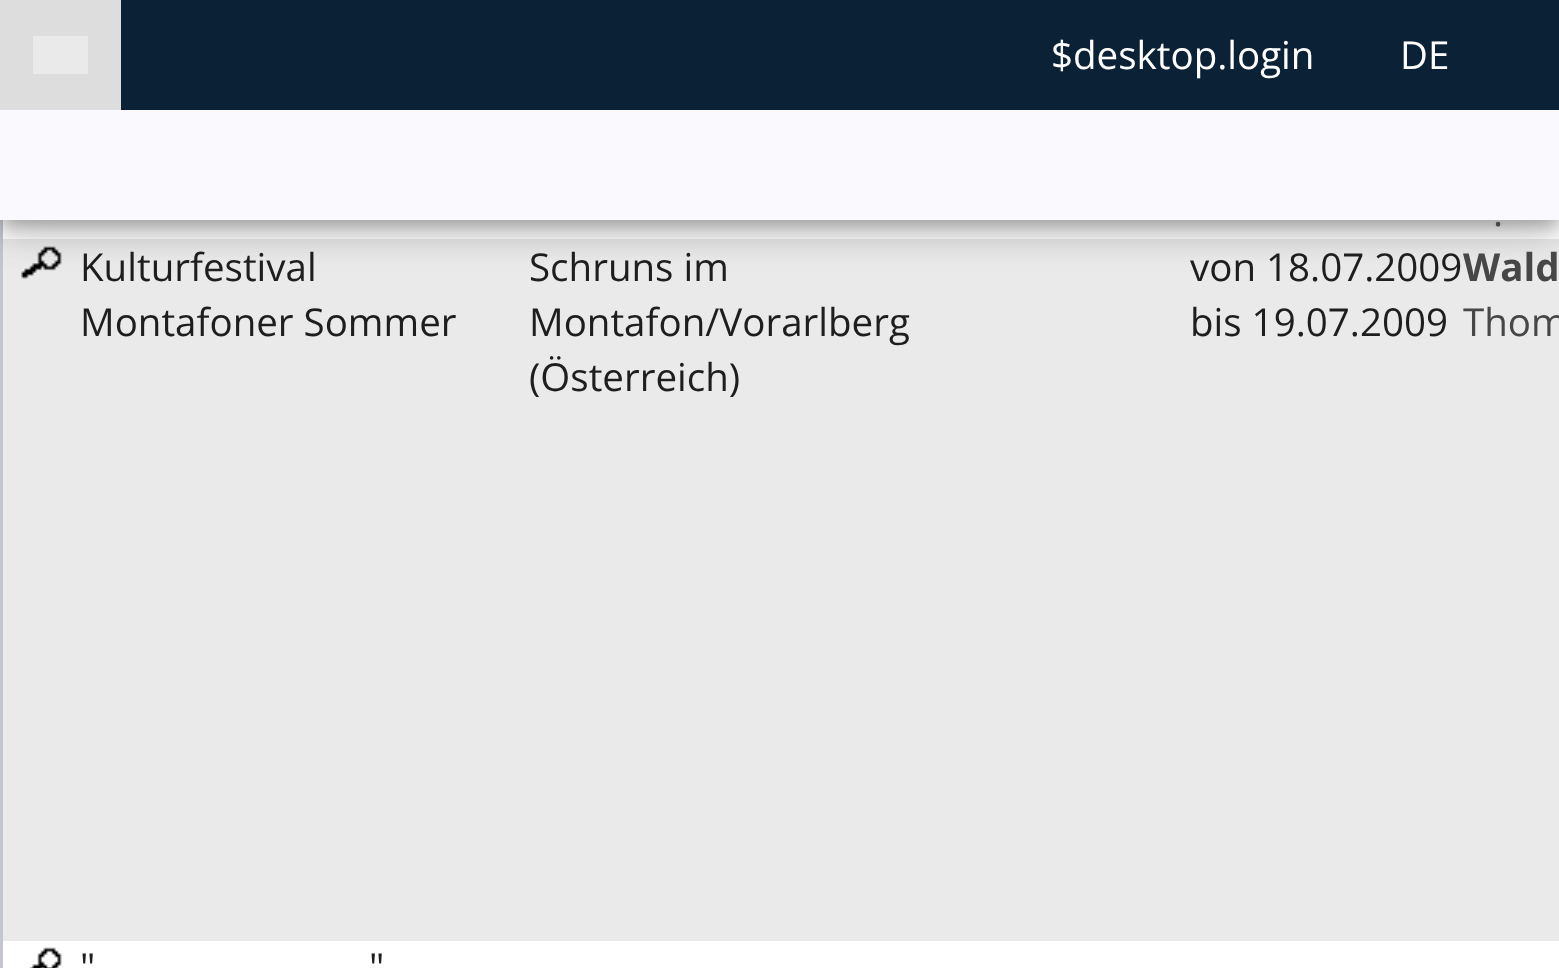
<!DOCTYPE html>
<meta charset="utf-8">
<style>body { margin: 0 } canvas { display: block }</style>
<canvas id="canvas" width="1559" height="968"></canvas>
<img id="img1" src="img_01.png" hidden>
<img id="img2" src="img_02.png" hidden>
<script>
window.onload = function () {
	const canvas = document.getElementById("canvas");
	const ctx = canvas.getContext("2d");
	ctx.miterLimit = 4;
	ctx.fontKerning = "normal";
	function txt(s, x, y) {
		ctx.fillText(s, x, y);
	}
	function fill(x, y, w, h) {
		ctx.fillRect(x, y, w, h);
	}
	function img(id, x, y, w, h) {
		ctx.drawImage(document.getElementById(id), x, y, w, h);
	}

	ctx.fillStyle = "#FFFFFF";
	fill(0, 0, 1559, 968);
	ctx.fillStyle = "#C3C6CF";
	fill(0, 220, 3, 748);
	ctx.fillStyle = "#EBEAEB";
	fill(3, 239, 1556, 702);
	img("img1", 21, 246, 41, 33);
	ctx.fillStyle = "rgba(0, 0, 0, 0.12)";
	ctx.filter = "blur(25px)";
	ctx.beginPath();
	ctx.rect(0, 3, 1559, 220);
	ctx.fill();
	ctx.filter = "none";
	ctx.fillStyle = "rgba(0, 0, 0, 0.14)";
	ctx.filter = "blur(14px)";
	ctx.beginPath();
	ctx.rect(0, 17, 1559, 220);
	ctx.fill();
	ctx.filter = "none";
	ctx.fillStyle = "rgba(0, 0, 0, 0.2)";
	ctx.filter = "blur(7px)";
	ctx.beginPath();
	ctx.rect(3, 11, 1554, 215);
	ctx.fill();
	ctx.filter = "none";
	ctx.fillStyle = "#0B2136";
	fill(121, 0, 1438, 110);
	ctx.fillStyle = "#DEDDDE";
	fill(0, 0, 121, 110);
	ctx.fillStyle = "#EBEAEB";
	fill(33, 36, 55, 38);
	ctx.fillStyle = "#FAF9FD";
	fill(0, 110, 1559, 110);
	img("img2", 29, 947, 33, 21);
	ctx.font = "38.5px Open Sans";
	ctx.fillStyle = "#FFFFFF";
	txt("$desktop.login", 1051, 69);
	txt("DE", 1400, 69);
	ctx.fillStyle = "#484748";
	txt(".", 1493, 226);
	ctx.fillStyle = "#1F1E1E";
	txt("Kulturfestival", 80, 281);
	txt("Montafoner Sommer", 80, 336);
	txt("Schruns im", 529, 281);
	txt("Montafon/Vorarlberg", 529, 336);
	txt("(Österreich)", 529, 391);
	txt("von 18.07.2009", 1190, 281);
	txt("bis 19.07.2009", 1190, 336);
	ctx.font = "bold 38.5px Open Sans";
	ctx.fillStyle = "#484748";
	txt("Wald", 1463, 281);
	ctx.font = "38.5px Open Sans";
	txt("Thom", 1463, 336);
	ctx.fillStyle = "#1F1E1E";
	txt("\"", 80, 981);
	txt("\"", 369, 981);
};
</script>
